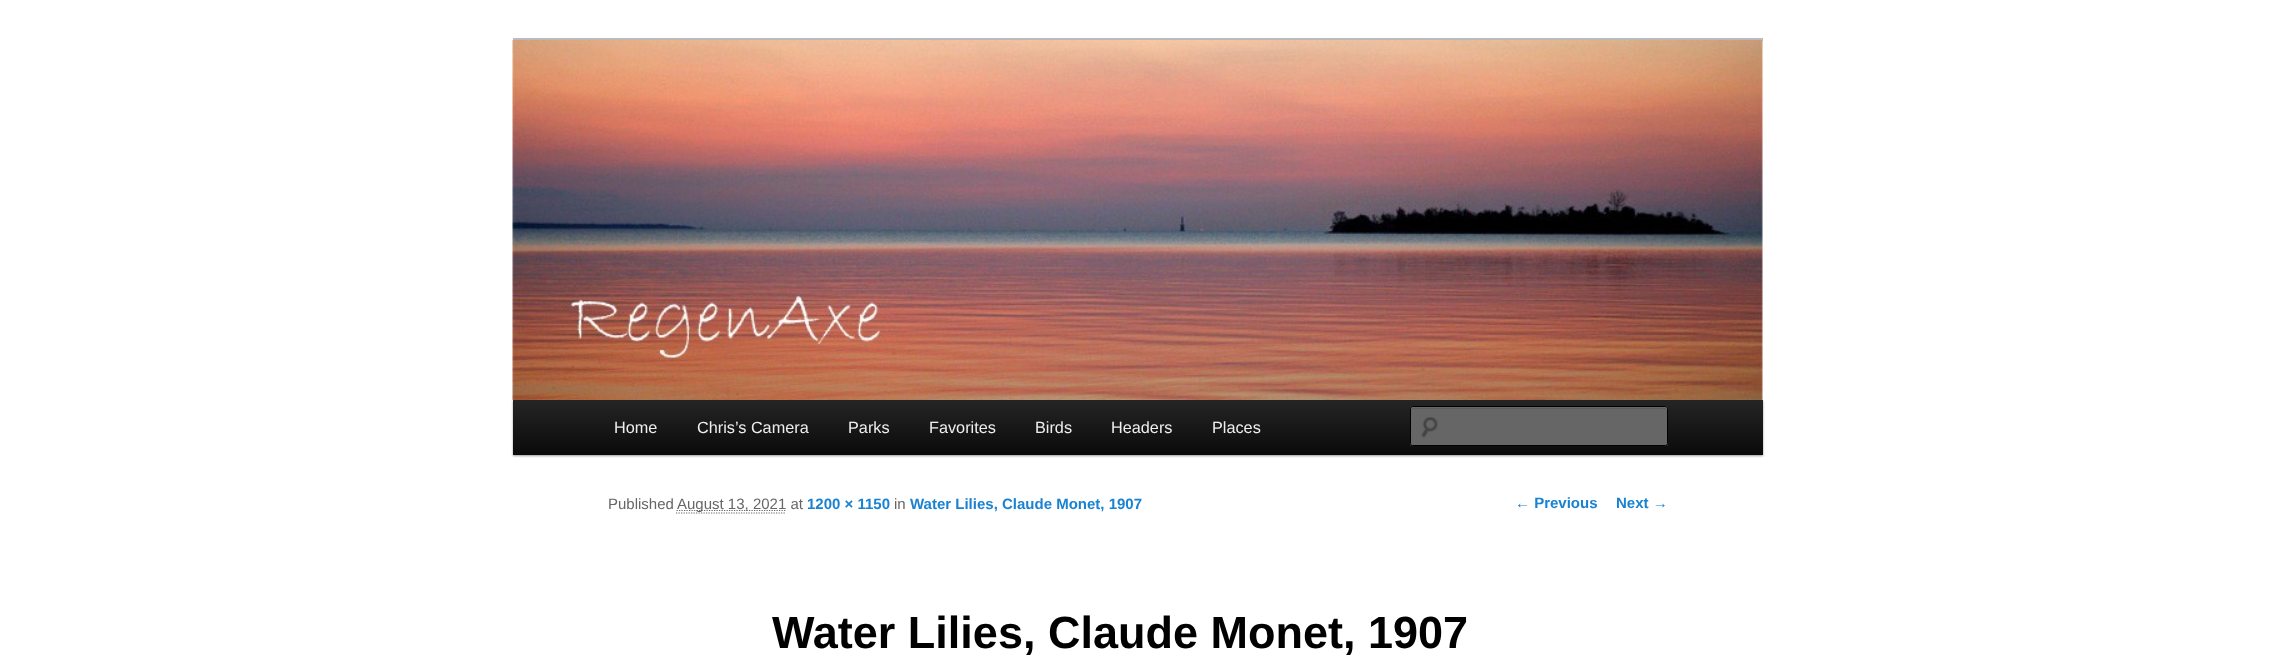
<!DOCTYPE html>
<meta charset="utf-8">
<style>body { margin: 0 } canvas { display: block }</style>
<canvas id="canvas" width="2275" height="671"></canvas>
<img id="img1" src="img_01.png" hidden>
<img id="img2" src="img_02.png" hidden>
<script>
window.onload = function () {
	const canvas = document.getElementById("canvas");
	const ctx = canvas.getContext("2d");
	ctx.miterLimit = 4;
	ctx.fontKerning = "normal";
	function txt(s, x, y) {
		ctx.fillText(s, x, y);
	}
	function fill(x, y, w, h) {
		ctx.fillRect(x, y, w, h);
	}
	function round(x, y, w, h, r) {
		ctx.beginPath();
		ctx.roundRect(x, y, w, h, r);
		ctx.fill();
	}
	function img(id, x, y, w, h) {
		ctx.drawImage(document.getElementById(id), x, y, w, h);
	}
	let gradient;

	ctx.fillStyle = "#FFFFFF";
	fill(0, 0, 2275, 671);
	ctx.fillStyle = "#BBBBBB";
	fill(513, 38, 1250, 3);
	ctx.fillStyle = "rgba(0, 0, 0, 0.4)";
	ctx.filter = "blur(1px)";
	ctx.beginPath();
	ctx.rect(513, 401, 1250, 55);
	ctx.fill();
	ctx.filter = "none";
	img("img1", 512, 40, 1251, 360);
	gradient = ctx.createLinearGradient(1138, 400, 1138, 455);
	gradient.addColorStop(0, "#252525");
	gradient.addColorStop(1, "#0A0A0A");
	ctx.fillStyle = gradient;
	fill(513, 400, 1250, 55);
	ctx.fillStyle = "#666666";
	round(1410, 406, 258, 40, 2.5);
	img("img2", 1421, 417, 17, 21);
	ctx.fillStyle = "#5C5C5C";
	ctx.beginPath();
	ctx.moveTo(1412, 409);
	ctx.lineTo(1665, 409);
	ctx.bezierCurveTo(1666, 409, 1666, 409, 1666, 410);
	ctx.lineTo(1666, 408);
	ctx.lineTo(1412, 408);
	ctx.bezierCurveTo(1411, 408, 1411, 409, 1411, 410);
	ctx.closePath();
	ctx.fill();
	ctx.beginPath();
	ctx.roundRect(1410.5, 406.5, 257, 39, 2);
	ctx.strokeStyle = "#000000";
	ctx.stroke();
	ctx.beginPath();
	ctx.moveTo(676, 513);
	ctx.lineTo(786, 513);
	ctx.strokeStyle = "#666666";
	ctx.lineWidth = 1.2;
	ctx.setLineDash([1.25, 1.25]);
	ctx.stroke();
	ctx.beginPath();
	ctx.moveTo(676.5, 510.5);
	ctx.lineTo(786, 510.5);
	ctx.stroke();
	ctx.font = "16.25px Liberation Sans";
	ctx.fillStyle = "#EEEEEE";
	txt("Home", 614, 433);
	txt("Chris’s Camera", 697, 433);
	txt("Parks", 848, 433);
	txt("Favorites", 929, 433);
	txt("Birds", 1035, 433);
	txt("Headers", 1111, 433);
	txt("Places", 1212, 433);
	ctx.font = "15px Liberation Sans";
	ctx.fillStyle = "#666666";
	txt("Published", 608, 509);
	txt("August 13, 2021 at", 677, 509);
	ctx.font = "bold 15px Liberation Sans";
	ctx.fillStyle = "#1982D1";
	txt("1200 × 1150", 807, 509);
	ctx.font = "15px Liberation Sans";
	ctx.fillStyle = "#666666";
	txt("in", 894, 509);
	ctx.font = "bold 15px Liberation Sans";
	ctx.fillStyle = "#1982D1";
	txt("Water Lilies, Claude Monet, 1907", 910, 509);
	ctx.font = "bold 45px Liberation Sans";
	ctx.fillStyle = "#000000";
	txt("Water Lilies, Claude Monet, 1907", 772, 648);
	ctx.font = "bold 15px Liberation Sans";
	ctx.fillStyle = "#1982D1";
	txt("← Previous", 1515, 508);
	txt("Next →", 1616, 508);
};
</script>
